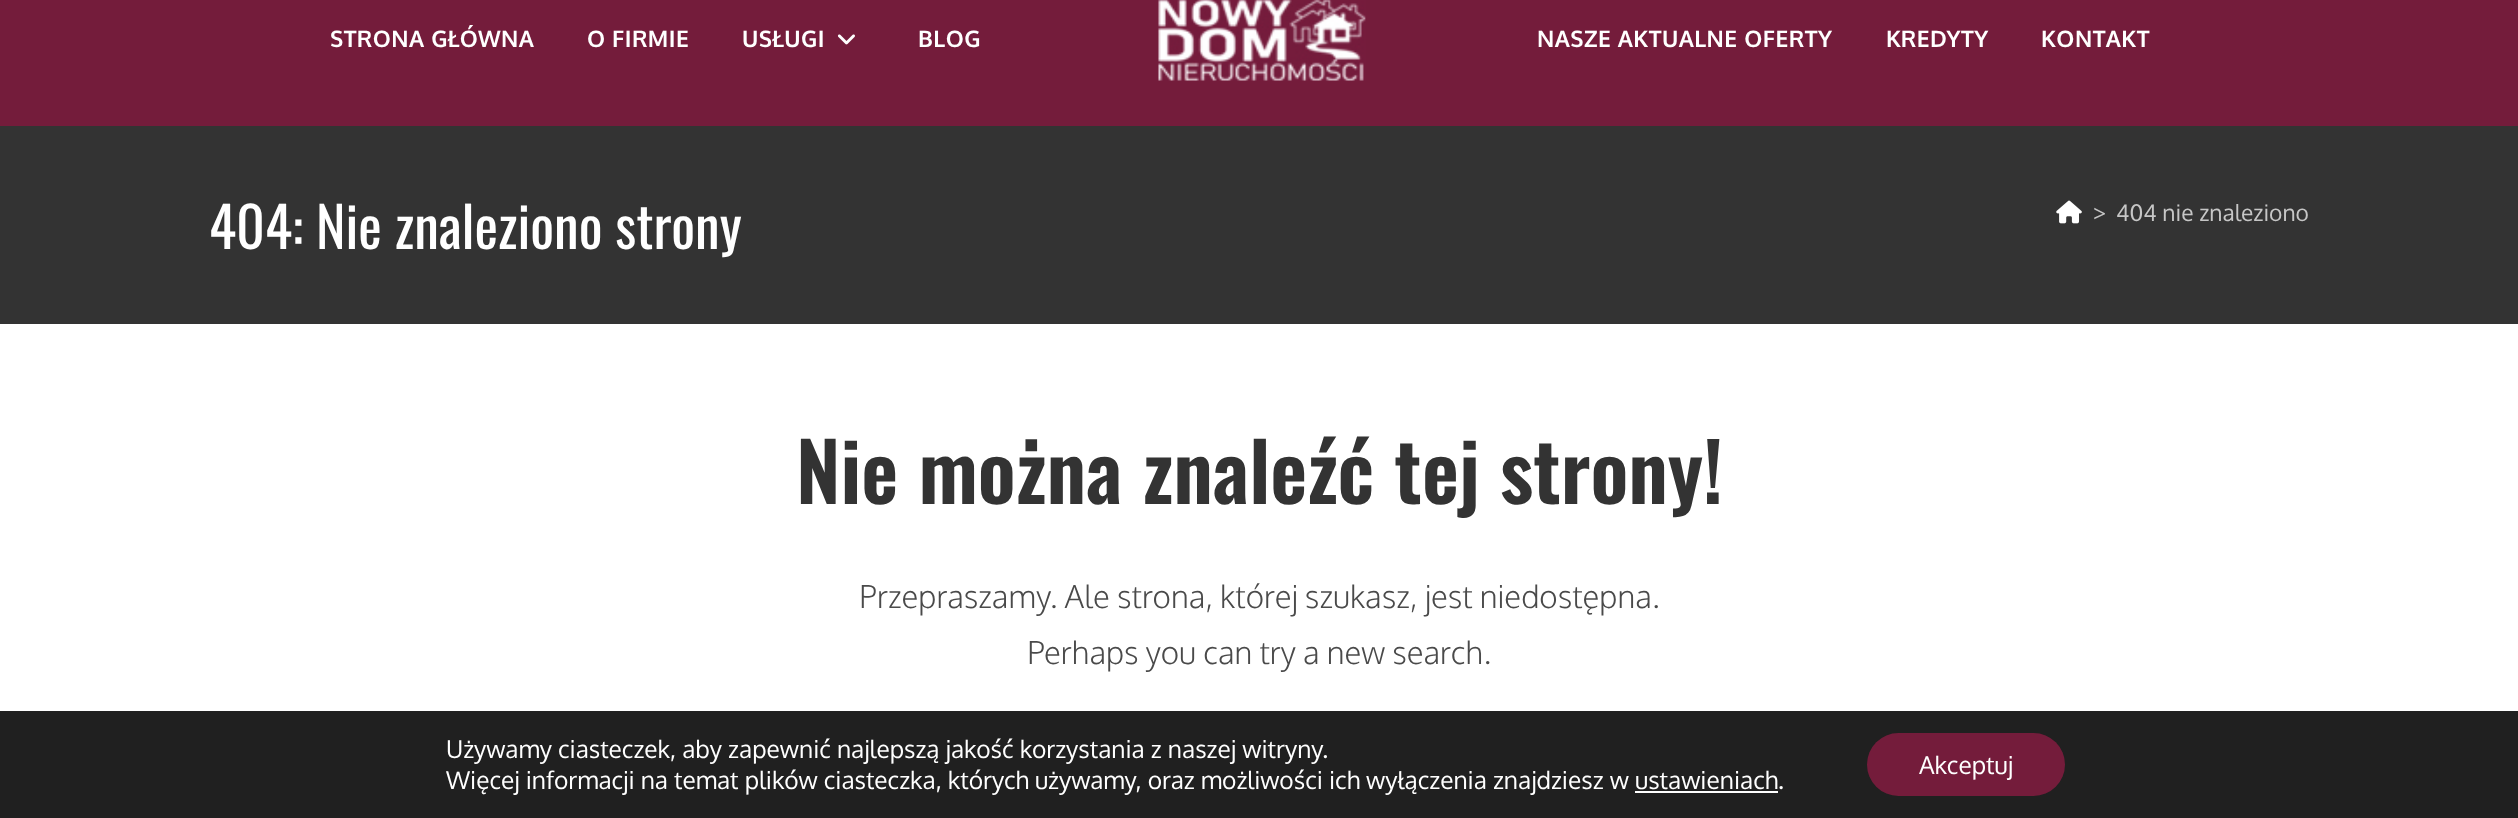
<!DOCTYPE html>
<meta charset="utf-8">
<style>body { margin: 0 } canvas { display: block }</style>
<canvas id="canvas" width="2518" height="818"></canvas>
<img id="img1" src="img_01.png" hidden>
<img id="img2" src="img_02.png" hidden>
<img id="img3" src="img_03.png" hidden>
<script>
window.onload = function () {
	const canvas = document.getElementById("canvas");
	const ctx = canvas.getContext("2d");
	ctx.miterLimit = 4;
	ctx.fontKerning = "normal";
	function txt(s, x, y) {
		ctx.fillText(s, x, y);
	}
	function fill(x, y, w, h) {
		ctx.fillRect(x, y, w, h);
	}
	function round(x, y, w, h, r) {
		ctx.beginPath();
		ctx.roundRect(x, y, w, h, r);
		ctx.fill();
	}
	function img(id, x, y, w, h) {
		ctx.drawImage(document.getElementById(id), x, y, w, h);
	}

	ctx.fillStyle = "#FFFFFF";
	fill(0, 0, 2518, 818);
	ctx.fillStyle = "#741C3B";
	fill(0, 0, 2518, 126);
	img("img1", 837, 34, 18, 11);
	img("img2", 1158, 0, 208, 81);
	ctx.fillStyle = "#333333";
	fill(0, 126, 2518, 198);
	img("img3", 2056, 200, 26, 24);
	ctx.fillStyle = "#202020";
	fill(0, 711, 2518, 107);
	ctx.fillStyle = "#FFFFFF";
	fill(1635, 791, 143, 2);
	ctx.fillStyle = "#741C3B";
	round(1867, 733, 198, 63, 31.5);
	ctx.letterSpacing = "0.5px";
	ctx.font = "bold 22.75px Oxygen";
	ctx.fillStyle = "#FFFFFF";
	txt("STRONA GŁÓWNA", 330, 47);
	txt("O FIRMIE", 587, 47);
	txt("USŁUGI", 742, 47);
	txt("BLOG", 918, 47);
	txt("NASZE AKTUALNE OFERTY", 1537, 47);
	txt("KREDYTY", 1886, 47);
	txt("KONTAKT", 2041, 47);
	ctx.letterSpacing = "0px";
	ctx.font = "56px Oswald";
	txt("404: Nie znaleziono strony", 209, 249);
	ctx.font = "22.75px Oxygen";
	ctx.fillStyle = "#C6C6C6";
	txt(">", 2093, 221);
	txt("404 nie znaleziono", 2116, 221);
	ctx.font = "600 80.5px Oswald";
	ctx.fillStyle = "#333333";
	txt("Nie można znaleźć tej strony!", 796, 504);
	ctx.font = "300 31.5px Oxygen";
	ctx.fillStyle = "#4A4A4A";
	txt("Przepraszamy. Ale strona, której szukasz, jest niedostępna.", 859, 608);
	txt("Perhaps you can try a new search.", 1027, 664);
	ctx.font = "24.5px Oxygen";
	ctx.fillStyle = "#FFFFFF";
	txt("Używamy ciasteczek, aby zapewnić najlepszą jakość korzystania z naszej witryny.", 446, 758);
	txt("Więcej informacji na temat plików ciasteczka, których używamy, oraz możliwości ich wyłączenia znajdziesz w ustawieniach.", 446, 789);
	txt("Akceptuj", 1919, 774);
};
</script>
